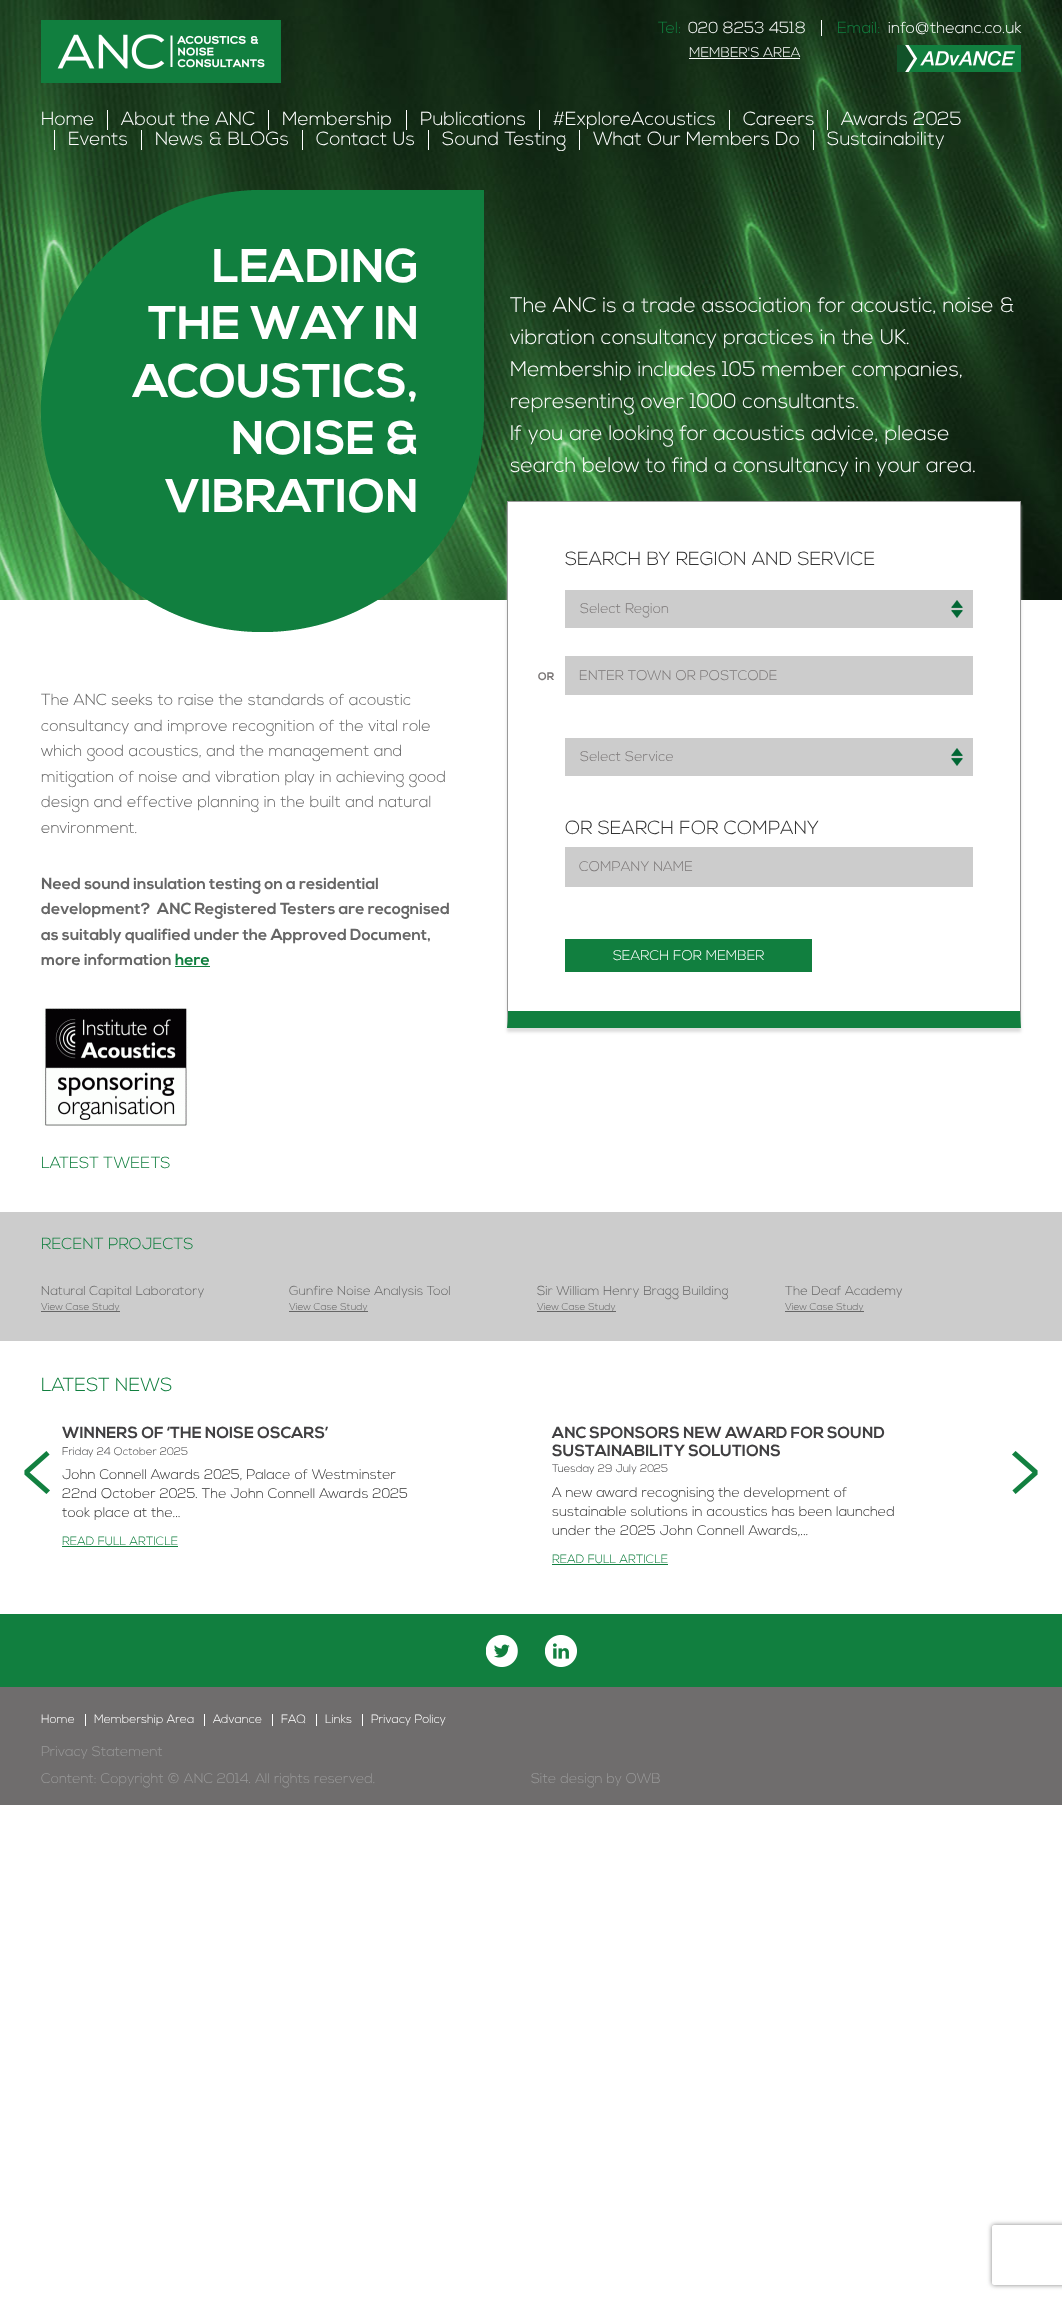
<!DOCTYPE html>
<meta charset="utf-8">
<style>body { margin: 0 } canvas { display: block }</style>
<canvas id="canvas" width="1062" height="2299"></canvas>
<img id="img1" src="img_03.png" hidden>
<img id="img2" src="img_01.png" hidden>
<img id="img3" src="img_02.png" hidden>
<img id="img4" src="img_04.png" hidden>
<img id="img5" src="img_05.png" hidden>
<img id="img6" src="img_06.png" hidden>
<img id="img7" src="img_07.png" hidden>
<img id="img8" src="img_08.png" hidden>
<img id="img9" src="img_09.png" hidden>
<img id="img10" src="img_10.png" hidden>
<script>
window.onload = function () {
	const canvas = document.getElementById("canvas");
	const ctx = canvas.getContext("2d");
	ctx.miterLimit = 4;
	ctx.fontKerning = "normal";
	function txt(s, x, y) {
		ctx.fillText(s, x, y);
	}
	function fill(x, y, w, h) {
		ctx.fillRect(x, y, w, h);
	}
	function img(id, x, y, w, h) {
		ctx.drawImage(document.getElementById(id), x, y, w, h);
	}

	ctx.fillStyle = "#FFFFFF";
	fill(0, 0, 1062, 2299);
	img("img1", 0, 0, 1062, 600);
	img("img2", 41, 20, 240, 63);
	fill(821, 20, 1, 16);
	fill(689, 58, 111, 1);
	img("img3", 897, 45, 124, 27);
	fill(107, 110, 1, 20);
	fill(268, 110, 1, 20);
	fill(406, 110, 1, 20);
	fill(539, 110, 1, 20);
	fill(729, 110, 1, 20);
	fill(827, 110, 1, 20);
	fill(54, 130, 1, 20);
	fill(141, 130, 1, 20);
	fill(302, 130, 1, 20);
	fill(428, 130, 1, 20);
	fill(579, 130, 1, 20);
	fill(813, 130, 1, 20);
	img("img4", 41, 190, 443, 442);
	ctx.fillStyle = "#117F3F";
	fill(175, 966, 35, 1);
	img("img5", 42, 1008, 148, 118);
	ctx.fillStyle = "rgba(205, 206, 206, 0.71)";
	ctx.filter = "blur(1.5px)";
	ctx.beginPath();
	ctx.rect(507, 505, 514, 527);
	ctx.fill();
	ctx.filter = "none";
	ctx.fillStyle = "#FFFFFF";
	fill(508, 502, 512, 509);
	ctx.fillStyle = "#999999";
	fill(507, 501, 514, 1);
	ctx.beginPath();
	ctx.moveTo(1021, 501);
	ctx.lineTo(1021, 1028);
	ctx.lineTo(1020, 1011);
	ctx.lineTo(1020, 502);
	ctx.closePath();
	ctx.fill();
	ctx.fillStyle = "#117F3F";
	ctx.beginPath();
	ctx.moveTo(1021, 1028);
	ctx.lineTo(507, 1028);
	ctx.lineTo(508, 1011);
	ctx.lineTo(1020, 1011);
	ctx.closePath();
	ctx.fill();
	ctx.fillStyle = "#999999";
	ctx.beginPath();
	ctx.moveTo(507, 1028);
	ctx.lineTo(507, 501);
	ctx.lineTo(508, 502);
	ctx.lineTo(508, 1011);
	ctx.closePath();
	ctx.fill();
	ctx.fillStyle = "#CCCCCC";
	fill(565, 590, 408, 38);
	img("img6", 951, 600, 12, 18);
	fill(565, 656, 408, 39);
	fill(565, 738, 408, 38);
	img("img6", 951, 748, 12, 18);
	fill(565, 847, 408, 40);
	ctx.fillStyle = "#117F3F";
	fill(565, 939, 247, 33);
	ctx.fillStyle = "#CCCCCC";
	fill(0, 1212, 1062, 129);
	ctx.fillStyle = "#666666";
	fill(41, 1311, 79, 1);
	fill(289, 1311, 79, 1);
	fill(537, 1311, 79, 1);
	fill(785, 1311, 79, 1);
	ctx.fillStyle = "#128040";
	fill(62, 1546, 116, 1);
	fill(552, 1564, 116, 1);
	img("img7", 24, 1451, 26, 43);
	img("img8", 1012, 1451, 26, 43);
	ctx.fillStyle = "#117F3F";
	fill(0, 1614, 1062, 73);
	img("img9", 486, 1635, 32, 32);
	img("img10", 545, 1635, 32, 32);
	ctx.fillStyle = "#6F6D6D";
	fill(0, 1687, 1062, 118);
	ctx.fillStyle = "#FFFFFF";
	fill(85, 1714, 1, 12);
	fill(204, 1714, 1, 12);
	fill(272, 1714, 1, 12);
	fill(316, 1714, 1, 12);
	fill(362, 1714, 1, 12);
	ctx.save();
	ctx.beginPath();
	ctx.moveTo(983, 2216);
	ctx.lineTo(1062, 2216);
	ctx.lineTo(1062, 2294);
	ctx.lineTo(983, 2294);
	ctx.closePath();
	ctx.moveTo(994, 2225);
	ctx.lineTo(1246, 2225);
	ctx.bezierCurveTo(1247, 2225, 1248, 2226, 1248, 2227);
	ctx.lineTo(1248, 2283);
	ctx.bezierCurveTo(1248, 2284, 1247, 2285, 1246, 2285);
	ctx.lineTo(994, 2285);
	ctx.bezierCurveTo(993, 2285, 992, 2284, 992, 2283);
	ctx.lineTo(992, 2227);
	ctx.bezierCurveTo(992, 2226, 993, 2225, 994, 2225);
	ctx.closePath();
	ctx.clip("evenodd");
	ctx.fillStyle = "#808080";
	ctx.filter = "blur(2.5px)";
	ctx.beginPath();
	ctx.roundRect(992, 2225, 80, 60, 2);
	ctx.fill();
	ctx.filter = "none";
	ctx.restore();
	ctx.font = "300 16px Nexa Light";
	ctx.fillStyle = "#117F3F";
	txt("Tel:", 658, 33);
	ctx.fillStyle = "#FFFFFF";
	txt("020 8253 4518", 688, 33);
	ctx.fillStyle = "#117F3F";
	txt("Email:", 837, 33);
	ctx.fillStyle = "#FFFFFF";
	txt("info@theanc.co.uk", 888, 33);
	ctx.font = "300 14px Nexa Light";
	txt("MEMBER'S AREA", 689, 57);
	ctx.font = "300 19px Nexa Light";
	txt("Home", 41, 125);
	txt("About the ANC", 121, 125);
	txt("Membership", 282, 125);
	txt("Publications", 420, 125);
	txt("#ExploreAcoustics", 553, 125);
	txt("Careers", 743, 125);
	txt("Awards 2025", 841, 125);
	txt("Events", 68, 145);
	txt("News & BLOGs", 155, 145);
	txt("Contact Us", 316, 145);
	txt("Sound Testing", 442, 145);
	txt("What Our Members Do", 593, 145);
	txt("Sustainability", 827, 145);
	ctx.font = "bold 47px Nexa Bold";
	txt("LEADING", 212, 282);
	txt("THE WAY IN", 148, 339);
	txt("ACOUSTICS,", 133, 397);
	txt("NOISE &", 231, 454);
	txt("VIBRATION", 165, 512);
	ctx.font = "300 21px Nexa Light";
	txt("The ANC is a trade association for acoustic, noise &", 510, 312);
	txt("vibration consultancy practices in the UK.", 510, 344);
	txt("Membership includes 105 member companies,", 510, 376);
	txt("representing over 1000 consultants.", 510, 408);
	txt("If you are looking for acoustics advice, please", 510, 440);
	txt("search below to find a consultancy in your area.", 510, 472);
	ctx.font = "300 16px Nexa Light";
	ctx.fillStyle = "#666666";
	txt("The ANC seeks to raise the standards of acoustic", 41, 705);
	txt("consultancy and improve recognition of the vital role", 41, 731);
	txt("which good acoustics, and the management and", 41, 756);
	txt("mitigation of noise and vibration play in achieving good", 41, 782);
	txt("design and effective planning in the built and natural", 41, 807);
	txt("environment.", 41, 833);
	ctx.font = "bold 16px Nexa Bold";
	txt("Need sound insulation testing on a residential", 41, 889);
	txt("development?  ANC Registered Testers are recognised", 41, 914);
	txt("as suitably qualified under the Approved Document,", 41, 940);
	txt("more information", 41, 965);
	ctx.fillStyle = "#117F3F";
	txt("here", 175, 965);
	ctx.font = "300 19px Nexa Light";
	ctx.fillStyle = "#333333";
	txt("SEARCH BY REGION AND SERVICE", 565, 565);
	ctx.font = "300 14px Nexa Light";
	ctx.fillStyle = "#7C7878";
	txt("Select Region", 580, 613);
	ctx.font = "bold 11px Nexa Bold";
	txt("OR", 538, 680);
	ctx.font = "300 14px Nexa Light";
	txt("ENTER TOWN OR POSTCODE", 579, 680);
	txt("Select Service", 580, 761);
	ctx.font = "300 19px Nexa Light";
	ctx.fillStyle = "#333333";
	txt("OR SEARCH FOR COMPANY", 565, 834);
	ctx.font = "300 14px Nexa Light";
	ctx.fillStyle = "#7C7878";
	txt("COMPANY NAME", 579, 871);
	ctx.fillStyle = "#FFFFFF";
	txt("SEARCH FOR MEMBER", 613, 960);
	ctx.font = "300 16px Nexa Light";
	ctx.fillStyle = "#117F3F";
	txt("LATEST TWEETS", 41, 1168);
	txt("RECENT PROJECTS", 41, 1249);
	ctx.font = "300 13px Nexa Light";
	ctx.fillStyle = "#666666";
	txt("Natural Capital Laboratory", 41, 1295);
	ctx.font = "300 10px Nexa Light";
	txt("View Case Study", 41, 1310);
	ctx.font = "300 13px Nexa Light";
	txt("Gunfire Noise Analysis Tool", 289, 1295);
	ctx.font = "300 10px Nexa Light";
	txt("View Case Study", 289, 1310);
	ctx.font = "300 13px Nexa Light";
	txt("Sir William Henry Bragg Building", 537, 1295);
	ctx.font = "300 10px Nexa Light";
	txt("View Case Study", 537, 1310);
	ctx.font = "300 13px Nexa Light";
	txt("The Deaf Academy", 785, 1295);
	ctx.font = "300 10px Nexa Light";
	txt("View Case Study", 785, 1310);
	ctx.font = "300 19px Nexa Light";
	ctx.fillStyle = "#117F3F";
	txt("LATEST NEWS", 41, 1391);
	ctx.font = "bold 16px Nexa Bold";
	ctx.fillStyle = "#414042";
	txt("WINNERS OF ‘THE NOISE OSCARS’", 62, 1438);
	ctx.font = "300 11px Nexa Light";
	txt("Friday 24 October 2025", 62, 1455);
	ctx.font = "300 14px Nexa Light";
	ctx.fillStyle = "#333333";
	txt("John Connell Awards 2025, Palace of Westminster", 62, 1479);
	txt("22nd October 2025. The John Connell Awards 2025", 62, 1498);
	txt("took place at the...", 62, 1517);
	ctx.font = "300 12px Nexa Light";
	ctx.fillStyle = "#117F3F";
	txt("READ FULL ARTICLE", 62, 1545);
	ctx.font = "bold 16px Nexa Bold";
	ctx.fillStyle = "#414042";
	txt("ANC SPONSORS NEW AWARD FOR SOUND", 552, 1438);
	txt("SUSTAINABILITY SOLUTIONS", 552, 1456);
	ctx.font = "300 11px Nexa Light";
	txt("Tuesday 29 July 2025", 552, 1472);
	ctx.font = "300 14px Nexa Light";
	ctx.fillStyle = "#333333";
	txt("A new award recognising the development of", 552, 1497);
	txt("sustainable solutions in acoustics has been launched", 552, 1516);
	txt("under the 2025 John Connell Awards,...", 552, 1535);
	ctx.font = "300 12px Nexa Light";
	ctx.fillStyle = "#117F3F";
	txt("READ FULL ARTICLE", 552, 1563);
	ctx.fillStyle = "#FFFFFF";
	txt("Home", 41, 1723);
	txt("Membership Area", 94, 1723);
	txt("Advance", 213, 1723);
	txt("FAQ", 281, 1723);
	txt("Links", 325, 1723);
	txt("Privacy Policy", 371, 1723);
	ctx.font = "300 14px Nexa Light";
	ctx.fillStyle = "#999999";
	txt("Privacy Statement", 41, 1756);
	txt("Content: Copyright © ANC 2014. All rights reserved.", 41, 1783);
	txt("Site design by OWB", 531, 1783);
};
</script>
